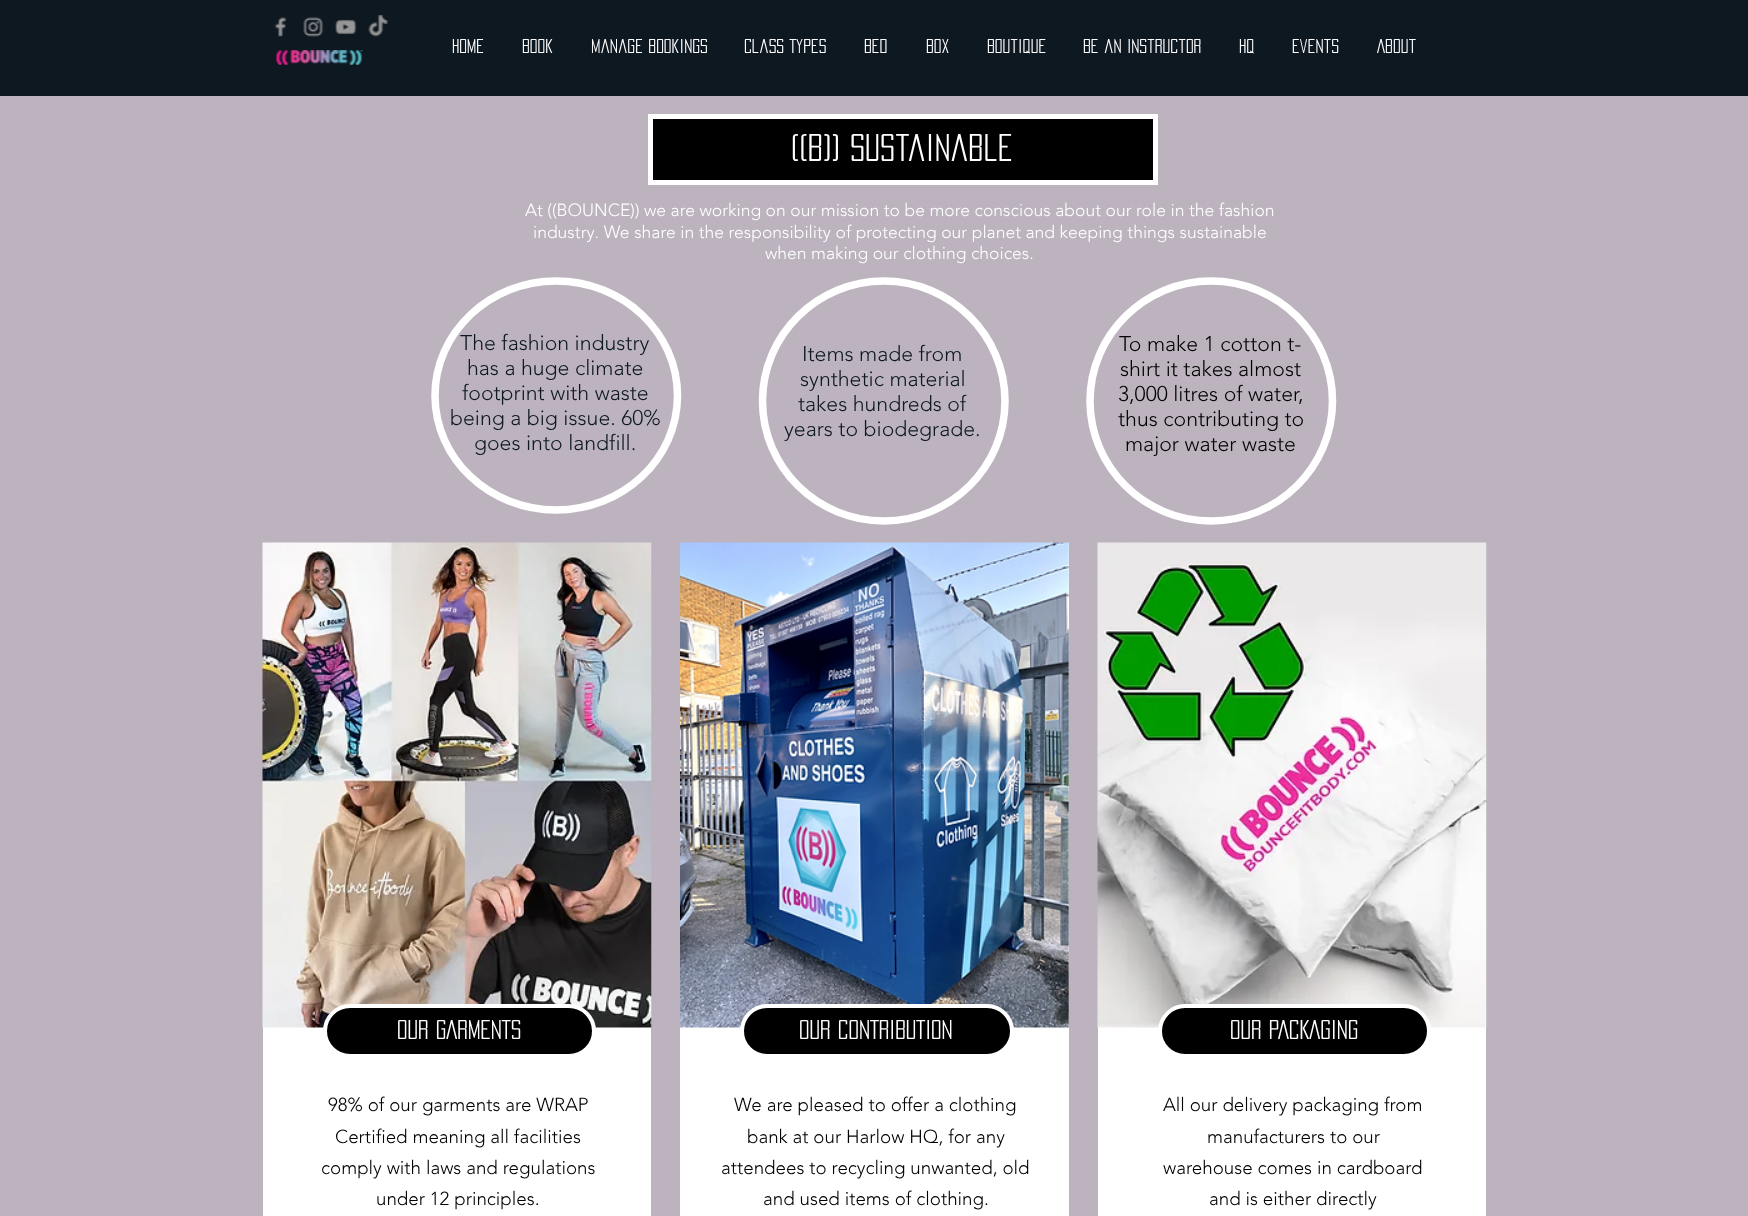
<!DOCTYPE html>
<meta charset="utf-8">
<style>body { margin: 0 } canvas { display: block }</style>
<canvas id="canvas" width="1748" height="1216"></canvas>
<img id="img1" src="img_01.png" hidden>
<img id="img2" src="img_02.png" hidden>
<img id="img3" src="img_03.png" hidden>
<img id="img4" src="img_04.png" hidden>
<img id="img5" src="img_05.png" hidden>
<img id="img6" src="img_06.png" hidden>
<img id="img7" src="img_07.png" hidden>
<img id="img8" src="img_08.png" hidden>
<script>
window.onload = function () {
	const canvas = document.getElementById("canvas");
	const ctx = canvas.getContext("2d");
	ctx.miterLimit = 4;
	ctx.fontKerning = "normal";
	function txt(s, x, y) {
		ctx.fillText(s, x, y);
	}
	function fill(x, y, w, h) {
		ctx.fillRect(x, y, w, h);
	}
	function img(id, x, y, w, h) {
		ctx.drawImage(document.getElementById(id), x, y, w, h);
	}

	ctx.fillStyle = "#BCB3BF";
	fill(0, 0, 1748, 1216);
	ctx.fillStyle = "#0E1821";
	fill(0, 0, 1748, 96);
	img("img1", 274, 17, 13, 20);
	img("img2", 303, 17, 21, 20);
	img("img3", 335, 19, 22, 16);
	img("img4", 368, 15, 21, 22);
	img("img5", 275, 50, 88, 15);
	ctx.fillStyle = "#000000";
	ctx.beginPath();
	ctx.rect(650.5, 116.5, 505, 66);
	ctx.fill();
	ctx.strokeStyle = "#FFFFFF";
	ctx.lineWidth = 5;
	ctx.stroke();
	ctx.beginPath();
	ctx.moveTo(556, 281);
	ctx.bezierCurveTo(623, 281, 677.5, 332.5, 677.5, 395.5);
	ctx.bezierCurveTo(677.5, 459, 623, 510, 556, 510);
	ctx.bezierCurveTo(489.5, 510, 435, 459, 435, 395.5);
	ctx.bezierCurveTo(435, 332.5, 489.5, 281, 556, 281);
	ctx.closePath();
	ctx.lineWidth = 7.5;
	ctx.stroke();
	ctx.beginPath();
	ctx.moveTo(884, 281);
	ctx.bezierCurveTo(950.5, 281, 1005, 335, 1005, 401);
	ctx.bezierCurveTo(1005, 467.5, 950.5, 521, 884, 521);
	ctx.bezierCurveTo(817, 521, 762.5, 467.5, 762.5, 401);
	ctx.bezierCurveTo(762.5, 335, 817, 281, 884, 281);
	ctx.closePath();
	ctx.stroke();
	ctx.beginPath();
	ctx.moveTo(1211, 281);
	ctx.bezierCurveTo(1278, 281, 1332.5, 335, 1332.5, 401);
	ctx.bezierCurveTo(1332.5, 467.5, 1278, 521, 1211, 521);
	ctx.bezierCurveTo(1144.5, 521, 1090, 467.5, 1090, 401);
	ctx.bezierCurveTo(1090, 335, 1144.5, 281, 1211, 281);
	ctx.closePath();
	ctx.stroke();
	ctx.fillStyle = "#FFFFFF";
	fill(263, 1027, 388, 189);
	img("img6", 262, 542, 390, 486);
	ctx.fillStyle = "#000000";
	ctx.beginPath();
	ctx.roundRect(325, 1006, 269, 50, 25);
	ctx.fill();
	ctx.lineWidth = 4;
	ctx.stroke();
	ctx.fillStyle = "#FFFFFF";
	fill(680, 543, 389, 673);
	img("img7", 680, 542, 389, 486);
	ctx.fillStyle = "#000000";
	ctx.beginPath();
	ctx.roundRect(742, 1006, 270, 50, 25);
	ctx.fill();
	ctx.stroke();
	ctx.fillStyle = "#FFFFFF";
	fill(1098, 1027, 388, 189);
	img("img8", 1097, 542, 390, 486);
	ctx.fillStyle = "#000000";
	ctx.beginPath();
	ctx.roundRect(1160, 1006, 269, 50, 25);
	ctx.fill();
	ctx.stroke();
	ctx.font = "17.5px 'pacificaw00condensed'";
	ctx.fillStyle = "#FFFFFF";
	txt("Home", 452, 53);
	txt("Book", 522, 53);
	txt("Manage Bookings", 591, 53);
	txt("Class Types", 744, 53);
	txt("Bed", 864, 53);
	txt("Box", 926, 53);
	txt("Boutique", 987, 53);
	txt("Be an Instructor", 1083, 53);
	txt("HQ", 1239, 53);
	txt("Events", 1292, 53);
	txt("About", 1377, 53);
	ctx.font = "33.75px 'pacificaw00condensed'";
	txt("((B)) sustainable", 791, 161);
	ctx.font = "300 17.5px 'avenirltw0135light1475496'";
	txt("At ((BOUNCE)) we are working on our mission to be more conscious about our role in the fashion", 525, 216);
	txt("industry. We share in the responsibility of protecting our planet and keeping things sustainable", 533, 238);
	txt("when making our clothing choices.", 765, 259);
	ctx.font = "300 21.25px 'avenirltw0135light1475496'";
	ctx.fillStyle = "#0E1821";
	txt("The fashion industry", 460, 350);
	txt("has a huge climate", 467, 375);
	txt("footprint with waste", 462, 400);
	txt("being a big issue. 60%", 450, 425);
	txt("goes into landfill.", 474, 450);
	txt("Items made from", 802, 361);
	txt("synthetic material", 800, 386);
	txt("takes hundreds of", 798, 411);
	txt("years to biodegrade.", 784, 436);
	ctx.fillStyle = "#000000";
	txt("To make 1 cotton t-", 1119, 351);
	txt("shirt it takes almost", 1120, 376);
	txt("3,000 litres of water,", 1118, 401);
	txt("thus contributing to", 1118, 426);
	txt("major water waste", 1125, 451);
	ctx.font = "23.75px 'pacificaw00condensed'";
	ctx.fillStyle = "#FFFFFF";
	txt("OUR GARMENTS", 397, 1039);
	ctx.font = "300 18.75px 'avenirltw0135light1475496'";
	ctx.fillStyle = "#000000";
	txt("98% of our garments are WRAP", 328, 1111);
	txt("Certified meaning all facilities", 335, 1143);
	txt("comply with laws and regulations", 321, 1174);
	txt("under 12 principles.", 376, 1205);
	ctx.font = "23.75px 'pacificaw00condensed'";
	ctx.fillStyle = "#FFFFFF";
	txt("OUR CONTRIBUTION", 799, 1039);
	ctx.font = "300 18.75px 'avenirltw0135light1475496'";
	ctx.fillStyle = "#000000";
	txt("We are pleased to offer a clothing", 734, 1111);
	txt("bank at our Harlow HQ, for any", 747, 1143);
	txt("attendees to recycling unwanted, old", 721, 1174);
	txt("and used items of clothing.", 763, 1205);
	ctx.font = "23.75px 'pacificaw00condensed'";
	ctx.fillStyle = "#FFFFFF";
	txt("OUR PACKAGING", 1230, 1039);
	ctx.font = "300 18.75px 'avenirltw0135light1475496'";
	ctx.fillStyle = "#000000";
	txt("All our delivery packaging from", 1163, 1111);
	txt("manufacturers to our", 1207, 1143);
	txt("warehouse comes in cardboard", 1163, 1174);
	txt("and is either directly", 1209, 1205);
};
</script>
